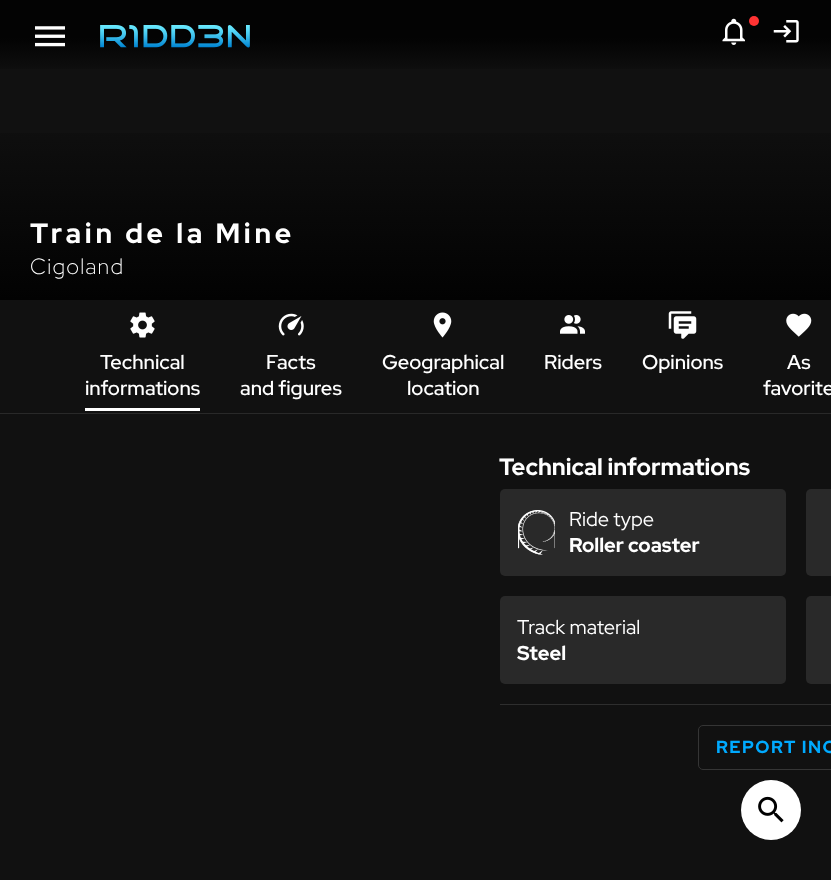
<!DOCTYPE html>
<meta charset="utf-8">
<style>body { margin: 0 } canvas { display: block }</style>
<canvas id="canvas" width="831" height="880"></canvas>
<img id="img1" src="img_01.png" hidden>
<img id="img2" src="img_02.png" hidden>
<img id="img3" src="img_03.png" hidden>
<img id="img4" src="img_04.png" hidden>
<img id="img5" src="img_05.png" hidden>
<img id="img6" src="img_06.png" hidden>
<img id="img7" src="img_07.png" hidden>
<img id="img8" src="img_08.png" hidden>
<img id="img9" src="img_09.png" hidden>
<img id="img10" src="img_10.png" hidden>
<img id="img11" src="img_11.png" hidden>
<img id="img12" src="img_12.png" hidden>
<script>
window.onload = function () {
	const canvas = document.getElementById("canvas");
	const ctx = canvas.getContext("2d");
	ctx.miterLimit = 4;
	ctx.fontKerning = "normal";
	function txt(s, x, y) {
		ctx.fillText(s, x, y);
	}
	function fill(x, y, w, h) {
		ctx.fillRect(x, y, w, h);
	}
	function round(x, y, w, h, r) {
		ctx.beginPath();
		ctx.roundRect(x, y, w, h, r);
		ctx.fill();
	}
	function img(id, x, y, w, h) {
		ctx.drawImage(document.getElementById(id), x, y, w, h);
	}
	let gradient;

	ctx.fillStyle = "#111111";
	fill(0, 0, 831, 880);
	gradient = ctx.createLinearGradient(416, 0, 416, 76);
	gradient.addColorStop(0.5, "#030303");
	gradient.addColorStop(1, "#111111");
	ctx.fillStyle = gradient;
	fill(0, 0, 831, 69);
	img("img1", 35, 26, 30, 21);
	img("img2", 100, 25, 150, 23);
	img("img3", 722, 18, 23, 27);
	ctx.fillStyle = "#FF3333";
	ctx.beginPath();
	ctx.arc(754, 21, 5, 0, Math.PI * 2);
	ctx.fill();
	img("img4", 773, 20, 26, 23);
	gradient = ctx.createLinearGradient(416, 300, 416, 100);
	gradient.addColorStop(0, "#020202");
	gradient.addColorStop(1, "#111111");
	ctx.fillStyle = gradient;
	fill(0, 133, 831, 167);
	ctx.fillStyle = "#292929";
	fill(0, 413, 831, 1);
	img("img5", 130, 312, 25, 26);
	ctx.fillStyle = "#FFFFFF";
	fill(85, 408, 115, 3);
	img("img6", 278, 313, 26, 23);
	img("img7", 433, 312, 19, 26);
	img("img8", 560, 315, 25, 19);
	img("img9", 668, 311, 29, 28);
	img("img10", 786, 313, 26, 24);
	ctx.fillStyle = "#292929";
	round(500, 489, 286, 87, 5);
	img("img11", 518, 510, 37, 45);
	ctx.beginPath();
	ctx.roundRect(806, 489, 25, 87, [5, 0, 0, 5]);
	ctx.fill();
	round(500, 596, 286, 88, 5);
	ctx.beginPath();
	ctx.roundRect(806, 596, 25, 88, [5, 0, 0, 5]);
	ctx.fill();
	ctx.fillStyle = "#2E2E2E";
	fill(500, 704, 331, 1);
	ctx.beginPath();
	ctx.roundRect(698.5, 725.5, 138, 44, 4.5);
	ctx.strokeStyle = "#353535";
	ctx.stroke();
	ctx.fillStyle = "#FFFFFF";
	ctx.beginPath();
	ctx.arc(771, 810, 30, 0, Math.PI * 2);
	ctx.fill();
	img("img12", 758, 796, 26, 27);
	ctx.letterSpacing = "3.75px";
	ctx.font = "bold 28px Red Hat Display";
	txt("Train de la Mine", 30, 243);
	ctx.letterSpacing = "1.25px";
	ctx.font = "300 22px Red Hat Display";
	txt("Cigoland", 30, 274);
	ctx.letterSpacing = "0px";
	ctx.font = "600 20px Red Hat Display";
	txt("Technical", 100, 369);
	txt("informations", 85, 395);
	txt("Facts", 266, 369);
	txt("and figures", 240, 395);
	txt("Geographical", 382, 369);
	txt("location", 407, 395);
	txt("Riders", 544, 369);
	txt("Opinions", 642, 369);
	txt("As", 787, 369);
	txt("favorite", 763, 395);
	ctx.font = "bold 23.5px Red Hat Display";
	txt("Technical informations", 499, 475);
	ctx.font = "20px Red Hat Display";
	txt("Ride type", 569, 526);
	ctx.font = "bold 20px Red Hat Display";
	txt("Roller coaster", 569, 552);
	ctx.font = "20px Red Hat Display";
	txt("Track material", 517, 634);
	ctx.font = "bold 20px Red Hat Display";
	txt("Steel", 517, 660);
	ctx.letterSpacing = "1.4px";
	ctx.font = "bold 17.5px Red Hat Display";
	ctx.fillStyle = "#00AAFF";
	txt("REPORT INC", 716, 753);
};
</script>
